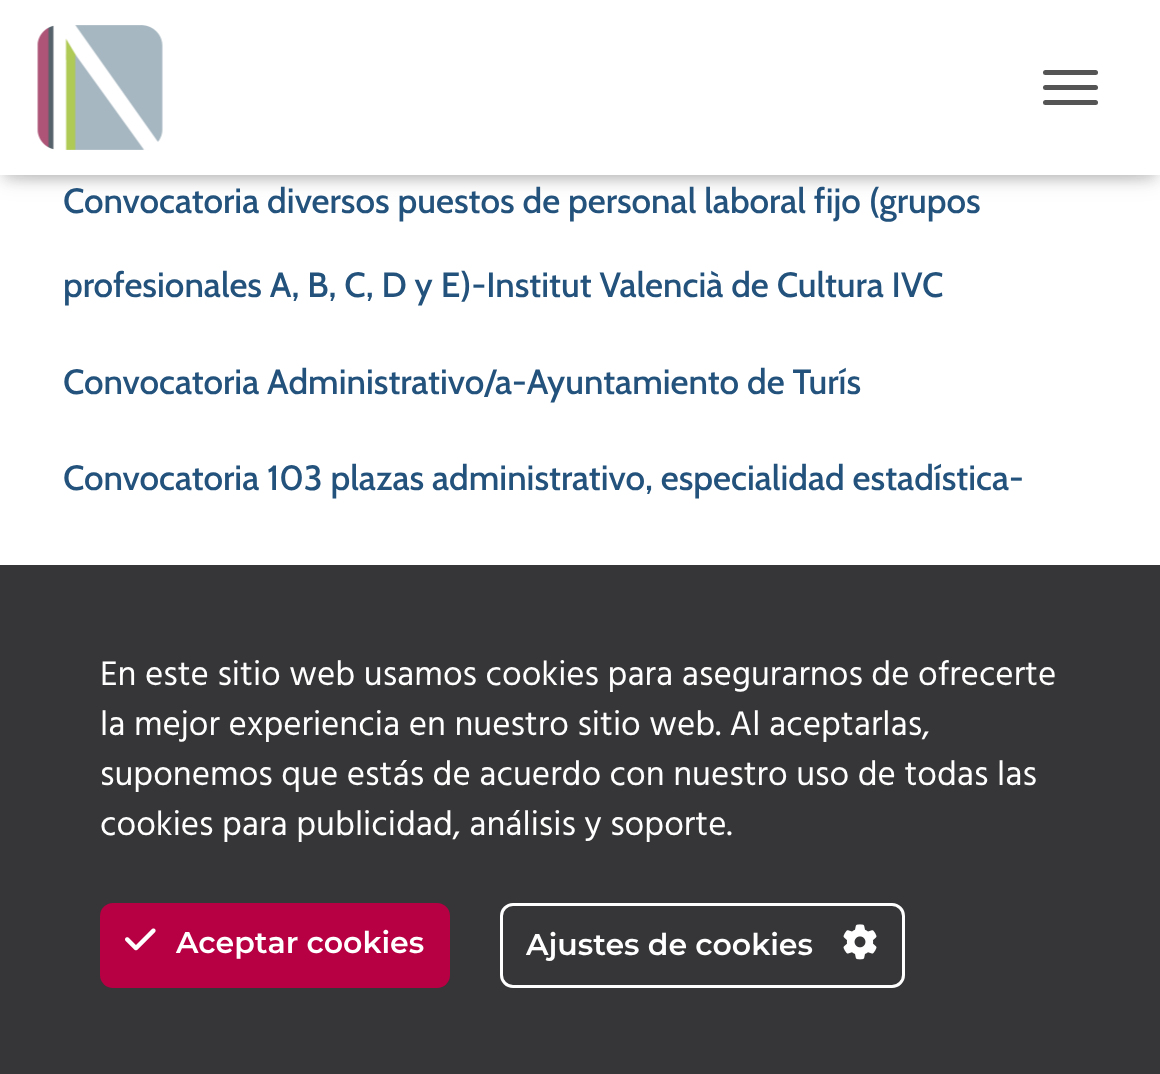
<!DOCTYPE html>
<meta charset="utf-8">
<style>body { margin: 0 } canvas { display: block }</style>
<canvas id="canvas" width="1160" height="1074"></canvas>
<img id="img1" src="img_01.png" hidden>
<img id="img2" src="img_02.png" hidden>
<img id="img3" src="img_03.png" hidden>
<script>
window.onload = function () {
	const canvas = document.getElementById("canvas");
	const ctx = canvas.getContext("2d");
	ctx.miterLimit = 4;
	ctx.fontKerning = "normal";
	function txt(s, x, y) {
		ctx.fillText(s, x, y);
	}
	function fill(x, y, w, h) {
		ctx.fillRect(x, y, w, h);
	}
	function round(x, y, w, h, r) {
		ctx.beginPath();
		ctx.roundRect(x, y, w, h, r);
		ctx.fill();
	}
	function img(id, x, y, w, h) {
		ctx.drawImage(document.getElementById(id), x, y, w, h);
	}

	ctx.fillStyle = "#FFFFFF";
	fill(0, 0, 1160, 1074);
	ctx.fillStyle = "rgba(0, 0, 0, 0.1)";
	ctx.filter = "blur(6px)";
	ctx.beginPath();
	ctx.rect(5, 15, 1150, 165);
	ctx.fill();
	ctx.filter = "none";
	ctx.fillStyle = "rgba(0, 0, 0, 0.12)";
	ctx.filter = "blur(12.5px)";
	ctx.beginPath();
	ctx.rect(0, 3, 1160, 175);
	ctx.fill();
	ctx.filter = "none";
	ctx.fillStyle = "rgba(0, 0, 0, 0.42)";
	ctx.filter = "blur(12.5px)";
	ctx.beginPath();
	ctx.rect(15, 18, 1130, 145);
	ctx.fill();
	ctx.filter = "none";
	ctx.fillStyle = "#FFFFFF";
	fill(0, 0, 1160, 175);
	img("img1", 37, 25, 126, 125);
	ctx.fillStyle = "#555555";
	round(1043, 70, 55, 5, 2.5);
	round(1043, 85, 55, 5, 2.5);
	round(1043, 100, 55, 5, 2.5);
	ctx.fillStyle = "#363537";
	fill(0, 565, 1160, 509);
	ctx.fillStyle = "#B70043";
	round(100, 903, 350, 85, 13);
	img("img2", 125, 928, 31, 23);
	ctx.beginPath();
	ctx.roundRect(501.5, 904.5, 402, 82, 11.5);
	ctx.strokeStyle = "#FFFFFF";
	ctx.lineWidth = 3;
	ctx.stroke();
	img("img3", 843, 924, 34, 36);
	ctx.font = "500 35px Cabin";
	ctx.fillStyle = "#23527C";
	txt("Convocatoria diversos puestos de personal laboral fijo (grupos", 63, 213);
	txt("profesionales A, B, C, D y E)-Institut Valencià de Cultura IVC", 63, 297);
	txt("Convocatoria Administrativo/a-Ayuntamiento de Turís", 63, 394);
	txt("Convocatoria 103 plazas administrativo, especialidad estadística-", 63, 490);
	ctx.font = "35px Hind";
	ctx.fillStyle = "#FFFFFF";
	txt("En este sitio web usamos cookies para asegurarnos de ofrecerte", 100, 685);
	txt("la mejor experiencia en nuestro sitio web. Al aceptarlas,", 100, 735);
	txt("suponemos que estás de acuerdo con nuestro uso de todas las", 100, 785);
	txt("cookies para publicidad, análisis y soporte.", 100, 835);
	ctx.font = "600 30px Montserrat";
	txt("Aceptar cookies", 176, 953);
	txt("Ajustes de cookies", 526, 955);
};
</script>
